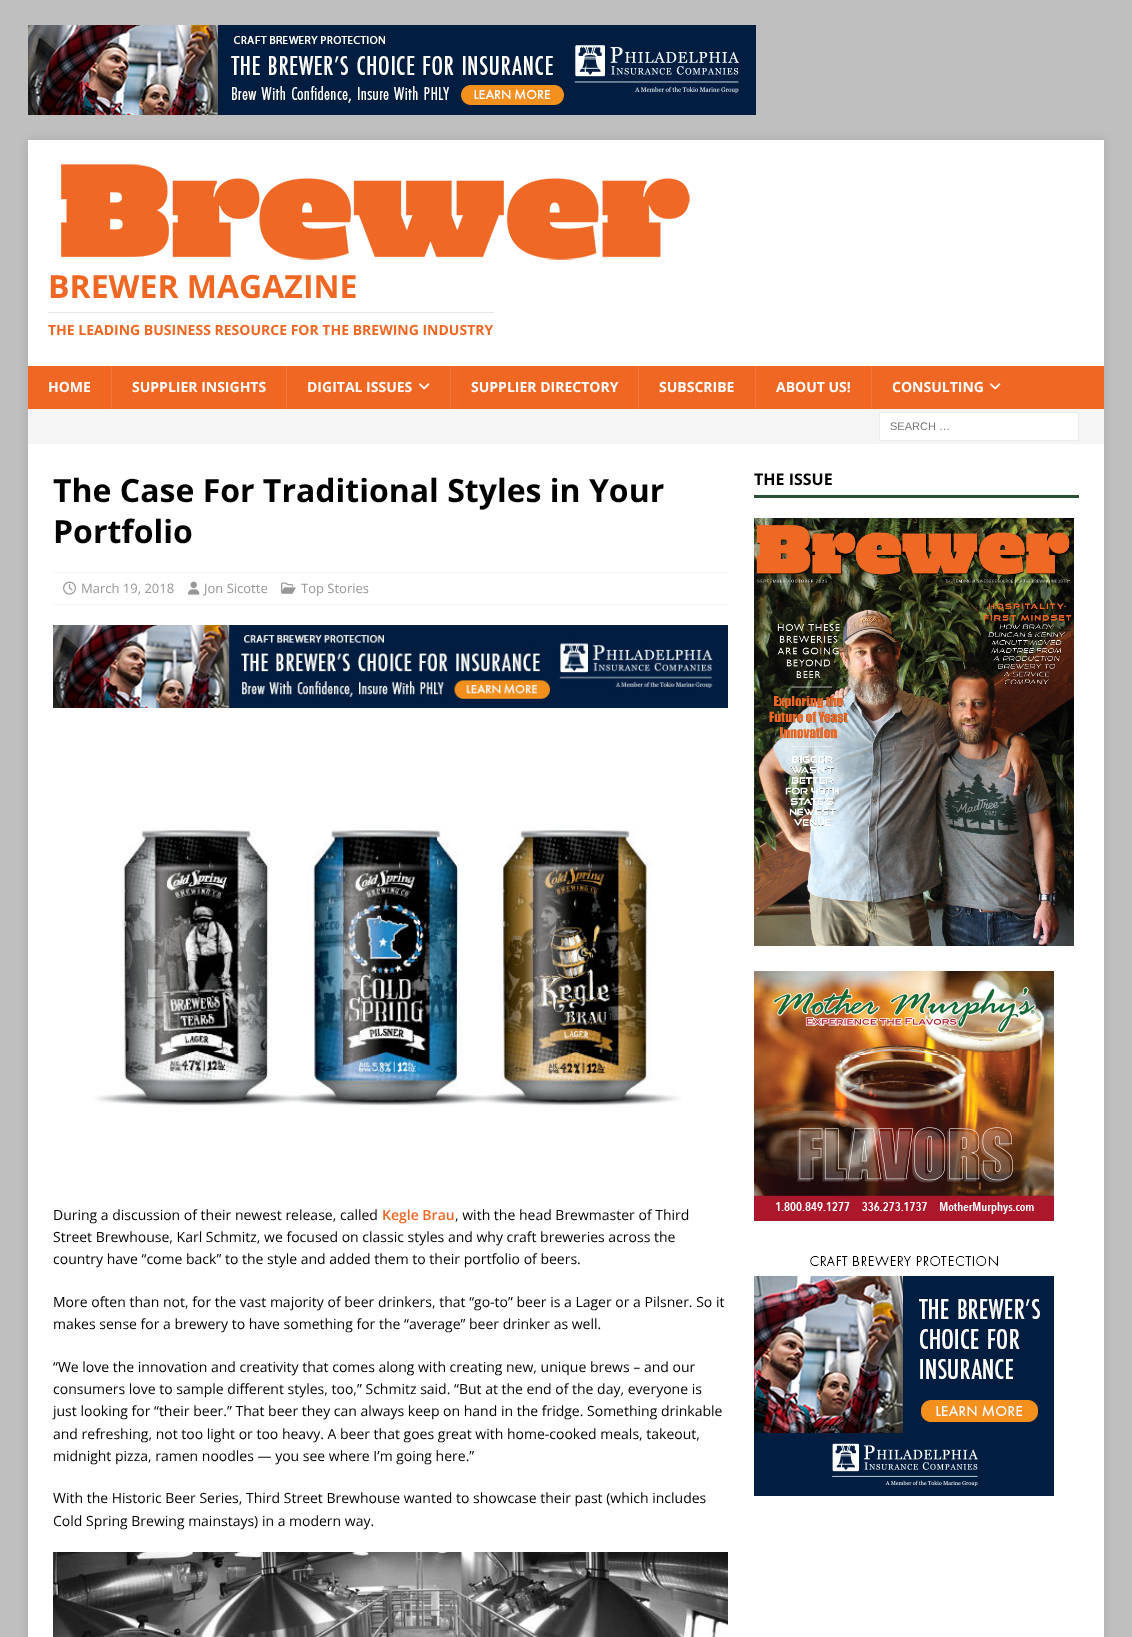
<!DOCTYPE html>
<meta charset="utf-8">
<style>body { margin: 0 } canvas { display: block }</style>
<canvas id="canvas" width="1132" height="1637"></canvas>
<img id="img1" src="img_01.png" hidden>
<img id="img2" src="img_02.png" hidden>
<img id="img3" src="img_03.png" hidden>
<img id="img4" src="img_04.png" hidden>
<img id="img5" src="img_05.png" hidden>
<img id="img6" src="img_06.png" hidden>
<img id="img7" src="img_07.png" hidden>
<img id="img8" src="img_08.png" hidden>
<img id="img9" src="img_09.png" hidden>
<img id="img10" src="img_10.png" hidden>
<img id="img11" src="img_11.png" hidden>
<img id="img12" src="img_12.png" hidden>
<script>
window.onload = function () {
	const canvas = document.getElementById("canvas");
	const ctx = canvas.getContext("2d");
	ctx.miterLimit = 4;
	ctx.fontKerning = "normal";
	function txt(s, x, y) {
		ctx.fillText(s, x, y);
	}
	function fill(x, y, w, h) {
		ctx.fillRect(x, y, w, h);
	}
	function img(id, x, y, w, h) {
		ctx.drawImage(document.getElementById(id), x, y, w, h);
	}

	ctx.fillStyle = "#BFBFBF";
	fill(0, 0, 1132, 1637);
	img("img1", 28, 25, 728, 90);
	ctx.fillStyle = "rgba(50, 50, 50, 0.17)";
	ctx.filter = "blur(5px)";
	ctx.beginPath();
	ctx.rect(28, 140, 1076, 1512);
	ctx.fill();
	ctx.filter = "none";
	ctx.fillStyle = "#FFFFFF";
	fill(28, 140, 1076, 226);
	img("img2", 61, 164, 629, 96);
	ctx.fillStyle = "#E5E5E5";
	fill(48, 312, 446, 1);
	ctx.fillStyle = "#F06723";
	fill(28, 366, 1076, 43);
	ctx.fillStyle = "#F27639";
	fill(111, 366, 1, 43);
	fill(286, 366, 1, 43);
	img("img3", 418, 383, 12, 7);
	fill(450, 366, 1, 43);
	fill(638, 366, 1, 43);
	fill(755, 366, 1, 43);
	fill(871, 366, 1, 43);
	img("img3", 989, 383, 12, 7);
	ctx.fillStyle = "#F5F5F5";
	fill(28, 409, 1076, 35);
	ctx.fillStyle = "#FFFFFF";
	ctx.beginPath();
	ctx.rect(879.5, 412.5, 199, 28);
	ctx.fill();
	ctx.strokeStyle = "#EBEBEB";
	ctx.stroke();
	fill(28, 444, 1076, 1193);
	ctx.beginPath();
	ctx.moveTo(53, 572.5);
	ctx.lineTo(728, 572.5);
	ctx.setLineDash([1, 1]);
	ctx.stroke();
	ctx.beginPath();
	ctx.moveTo(53, 604.5);
	ctx.lineTo(728, 604.5);
	ctx.stroke();
	img("img4", 63, 581, 13, 14);
	img("img5", 188, 581, 12, 14);
	img("img6", 281, 582, 15, 12);
	img("img7", 53, 625, 675, 83);
	img("img8", 93, 826, 589, 280);
	img("img9", 53, 1552, 675, 85);
	ctx.fillStyle = "#295034";
	fill(754, 495, 325, 3);
	img("img10", 754, 518, 320, 428);
	img("img11", 754, 971, 300, 250);
	img("img12", 754, 1256, 300, 240);
	ctx.font = "bold 32px Open Sans";
	ctx.fillStyle = "#F06723";
	txt("BREWER MAGAZINE", 48, 298);
	ctx.font = "bold 14px Open Sans";
	txt("THE LEADING BUSINESS RESOURCE FOR THE BREWING INDUSTRY", 48, 335);
	ctx.fillStyle = "#FFFFFF";
	txt("HOME", 48, 392);
	txt("SUPPLIER INSIGHTS", 132, 392);
	txt("DIGITAL ISSUES", 307, 392);
	txt("SUPPLIER DIRECTORY", 471, 392);
	txt("SUBSCRIBE", 659, 392);
	txt("ABOUT US!", 776, 392);
	txt("CONSULTING", 892, 392);
	ctx.font = "11px Liberation Sans";
	ctx.fillStyle = "#757575";
	txt("SEARCH …", 890, 430);
	ctx.font = "bold 32px Open Sans";
	ctx.fillStyle = "#000000";
	txt("The Case For Traditional Styles in Your", 53, 502);
	txt("Portfolio", 53, 543);
	ctx.font = "13px Open Sans";
	ctx.fillStyle = "#979797";
	txt("March 19, 2018", 81, 593);
	txt("Jon Sicotte", 204, 593);
	txt("Top Stories", 301, 593);
	ctx.font = "14px Open Sans";
	ctx.fillStyle = "#000000";
	txt("During a discussion of their newest release, called", 53, 1220);
	ctx.font = "600 14px Open Sans";
	ctx.fillStyle = "#F06723";
	txt("Kegle Brau", 382, 1220);
	ctx.font = "14px Open Sans";
	ctx.fillStyle = "#000000";
	txt(", with the head Brewmaster of Third", 455, 1220);
	txt("Street Brewhouse, Karl Schmitz, we focused on classic styles and why craft breweries across the", 53, 1242);
	txt("country have “come back” to the style and added them to their portfolio of beers.", 53, 1264);
	txt("More often than not, for the vast majority of beer drinkers, that “go-to” beer is a Lager or a Pilsner. So it", 53, 1307);
	txt("makes sense for a brewery to have something for the “average” beer drinker as well.", 53, 1329);
	txt("“We love the innovation and creativity that comes along with creating new, unique brews – and our", 53, 1372);
	txt("consumers love to sample different styles, too,” Schmitz said. “But at the end of the day, everyone is", 53, 1394);
	txt("just looking for “their beer.” That beer they can always keep on hand in the fridge. Something drinkable", 53, 1416);
	txt("and refreshing, not too light or too heavy. A beer that goes great with home-cooked meals, takeout,", 53, 1439);
	txt("midnight pizza, ramen noodles — you see where I’m going here.”", 53, 1461);
	txt("With the Historic Beer Series, Third Street Brewhouse wanted to showcase their past (which includes", 53, 1503);
	txt("Cold Spring Brewing mainstays) in a modern way.", 53, 1526);
	ctx.font = "bold 16px Open Sans";
	txt("THE ISSUE", 754, 485);
};
</script>
